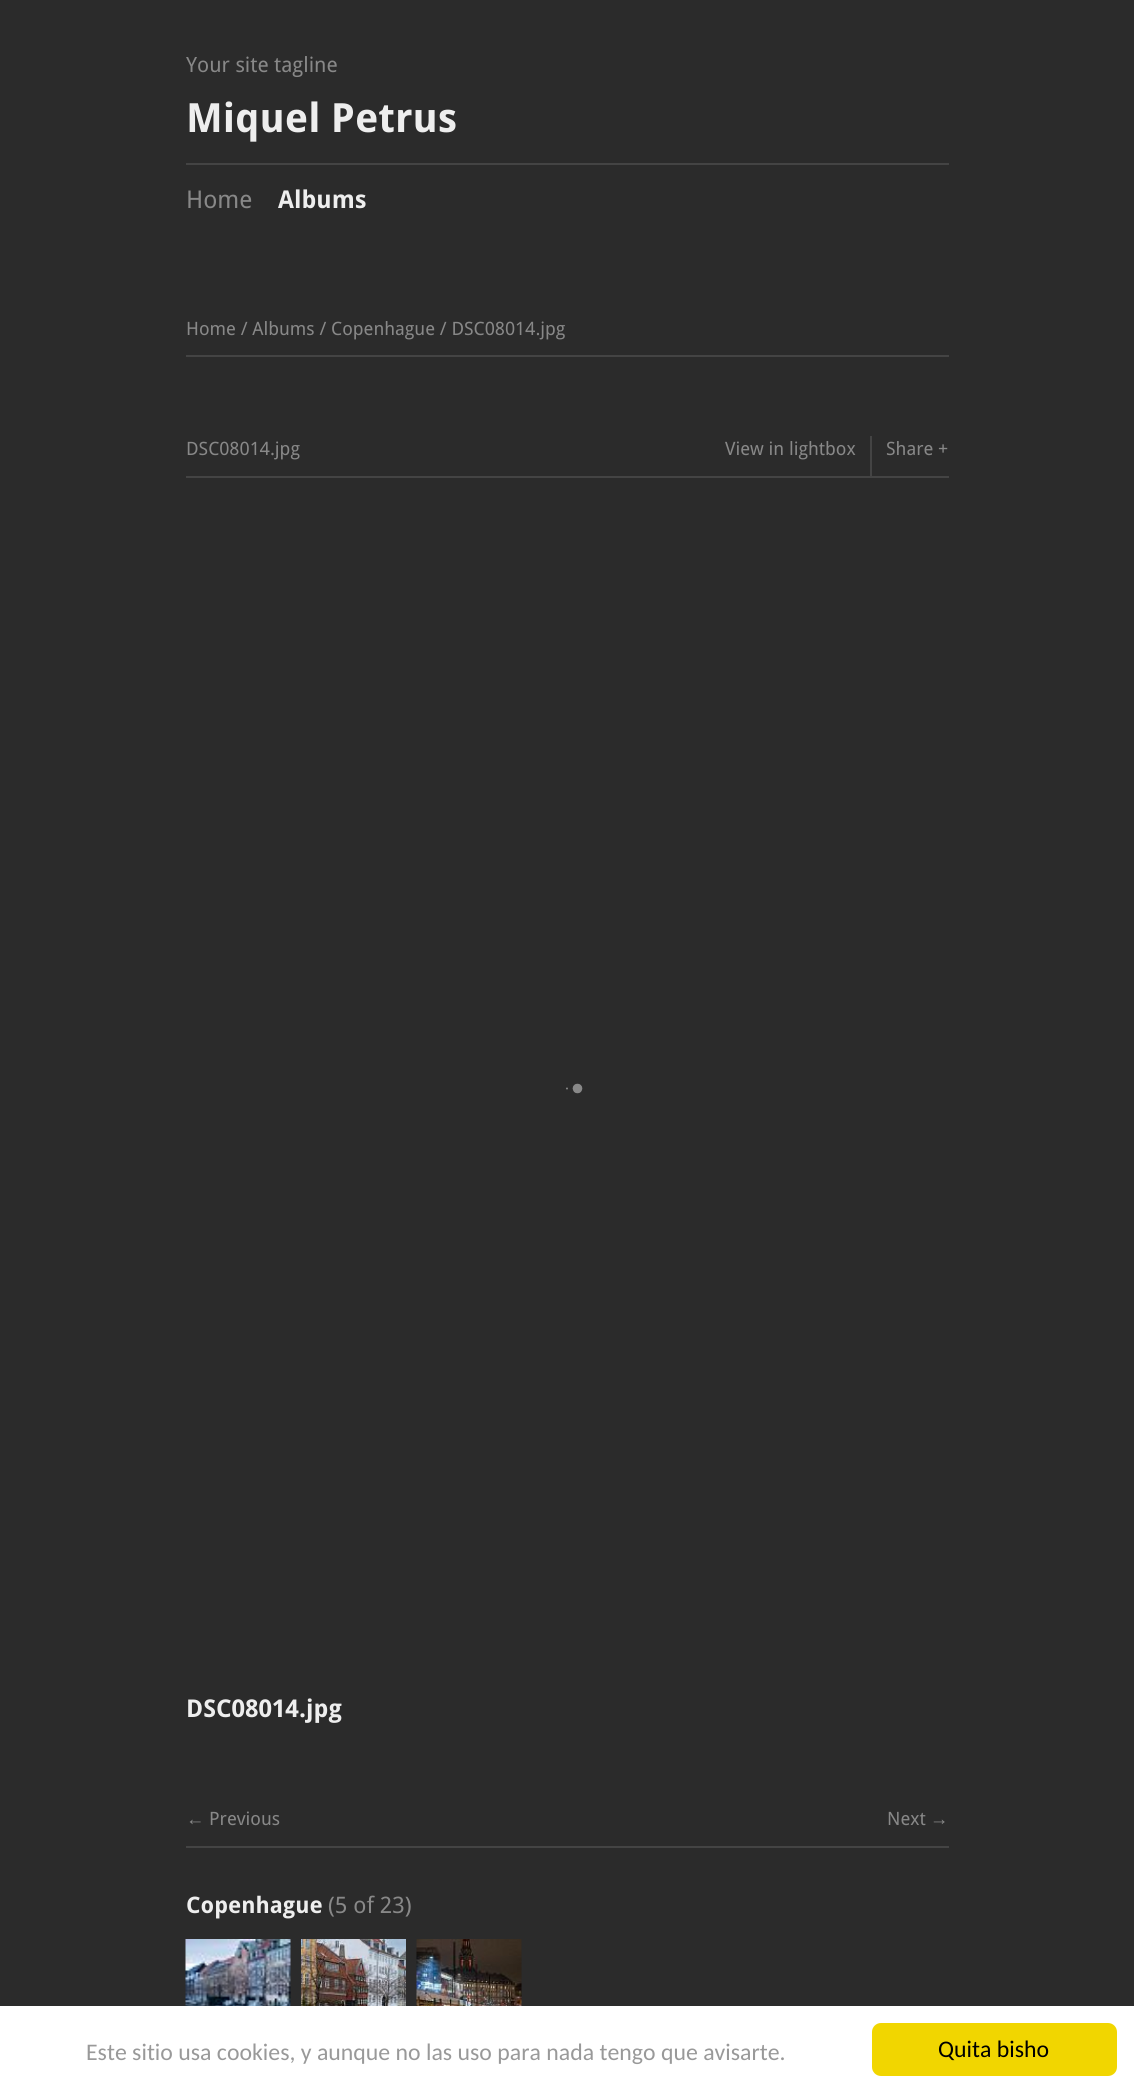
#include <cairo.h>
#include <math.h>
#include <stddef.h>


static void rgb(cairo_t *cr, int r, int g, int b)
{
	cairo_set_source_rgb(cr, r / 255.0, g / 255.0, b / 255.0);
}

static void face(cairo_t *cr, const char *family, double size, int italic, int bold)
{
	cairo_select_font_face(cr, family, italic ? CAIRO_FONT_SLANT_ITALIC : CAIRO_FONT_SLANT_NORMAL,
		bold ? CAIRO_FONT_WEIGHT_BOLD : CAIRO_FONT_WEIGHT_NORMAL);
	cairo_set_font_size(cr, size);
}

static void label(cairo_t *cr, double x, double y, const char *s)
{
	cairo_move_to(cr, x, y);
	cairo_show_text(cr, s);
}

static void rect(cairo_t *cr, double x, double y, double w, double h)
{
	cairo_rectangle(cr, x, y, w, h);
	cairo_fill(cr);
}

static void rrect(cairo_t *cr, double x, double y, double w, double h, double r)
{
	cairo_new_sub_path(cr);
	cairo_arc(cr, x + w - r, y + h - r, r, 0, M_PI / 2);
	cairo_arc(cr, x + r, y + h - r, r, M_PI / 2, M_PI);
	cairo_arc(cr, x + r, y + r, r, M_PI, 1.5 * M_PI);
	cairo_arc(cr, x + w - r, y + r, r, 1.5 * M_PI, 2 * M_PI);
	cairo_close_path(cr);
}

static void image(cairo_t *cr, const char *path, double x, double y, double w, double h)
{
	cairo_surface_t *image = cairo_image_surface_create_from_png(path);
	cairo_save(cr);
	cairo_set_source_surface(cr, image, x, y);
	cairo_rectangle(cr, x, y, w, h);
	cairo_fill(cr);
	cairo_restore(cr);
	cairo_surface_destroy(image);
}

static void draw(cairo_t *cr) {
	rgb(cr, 43, 43, 43);
	cairo_paint(cr);
	face(cr, "Droid Sans", 21, 0, 0);
	rgb(cr, 136, 136, 136);
	label(cr, 186, 72, "Your site tagline");
	face(cr, "Droid Sans", 40.25, 0, 1);
	rgb(cr, 238, 238, 238);
	label(cr, 186, 132, "Miquel Petrus");
	rgb(cr, 68, 68, 68);
	rect(cr, 186, 163, 763, 2);
	face(cr, "Droid Sans", 24.5, 0, 0);
	rgb(cr, 136, 136, 136);
	label(cr, 186, 208, "Home");
	face(cr, "Droid Sans", 24.5, 0, 1);
	rgb(cr, 238, 238, 238);
	label(cr, 278, 208, "Albums");
	rgb(cr, 68, 68, 68);
	rect(cr, 186, 355, 763, 2);
	face(cr, "Droid Sans", 18.4, 0, 0);
	rgb(cr, 136, 136, 136);
	label(cr, 186, 335, "Home / Albums / Copenhague / DSC08014.jpg");
	rgb(cr, 68, 68, 68);
	rect(cr, 186, 476, 763, 2);
	rgb(cr, 136, 136, 136);
	label(cr, 186, 455, "DSC08014.jpg");
	label(cr, 725, 455, "View in lightbox");
	rgb(cr, 68, 68, 68);
	rect(cr, 870, 436, 2, 40);
	rgb(cr, 136, 136, 136);
	label(cr, 886, 455, "Share +");
	image(cr, "image0.png", 566, 1083, 17, 11);
	face(cr, "Droid Sans", 24.5, 0, 1);
	rgb(cr, 238, 238, 238);
	label(cr, 186, 1717, "DSC08014.jpg");
	rgb(cr, 68, 68, 68);
	rect(cr, 186, 1846, 763, 2);
	face(cr, "Liberation Sans", 18.4, 0, 0);
	rgb(cr, 136, 136, 136);
	label(cr, 186, 1825, "←");
	face(cr, "Droid Sans", 18.4, 0, 0);
	label(cr, 209, 1825, "Previous");
	label(cr, 887, 1825, "Next");
	face(cr, "Liberation Sans", 18.4, 0, 0);
	label(cr, 930, 1825, "→");
	face(cr, "Droid Sans", 22.75, 0, 1);
	rgb(cr, 238, 238, 238);
	label(cr, 186, 1913, "Copenhague");
	face(cr, "Droid Sans", 22.75, 0, 0);
	rgb(cr, 136, 136, 136);
	label(cr, 328, 1913, "(5 of 23)");
	image(cr, "image1.png", 185, 1939, 106, 67);
	image(cr, "image2.png", 301, 1939, 105, 67);
	image(cr, "image3.png", 416, 1939, 106, 67);
	rgb(cr, 255, 255, 255);
	rect(cr, 0, 2006, 1134, 87);
	face(cr, "Carlito", 23.8, 0, 0);
	rgb(cr, 153, 153, 153);
	label(cr, 86, 2060, "Este sitio usa cookies, y aunque no las uso para nada tengo que avisarte.");
	rgb(cr, 241, 214, 0);
	rrect(cr, 872, 2023, 245, 53, 9);
	cairo_fill(cr);
	rgb(cr, 0, 0, 0);
	label(cr, 938, 2057, "Quita bisho");
}

int main(void) {
	cairo_surface_t *surface = cairo_image_surface_create(CAIRO_FORMAT_RGB24, 1134, 2093);
	cairo_t *cr = cairo_create(surface);
	cairo_font_options_t *options = cairo_font_options_create();
	cairo_font_options_set_hint_metrics(options, CAIRO_HINT_METRICS_OFF);
	cairo_font_options_set_hint_style(options, CAIRO_HINT_STYLE_NONE);
	cairo_set_font_options(cr, options);
	cairo_set_miter_limit(cr, 4);
	draw(cr);
	cairo_surface_write_to_png(surface, "render.png");
	cairo_font_options_destroy(options);
	cairo_destroy(cr);
	cairo_surface_destroy(surface);
	return 0;
}
